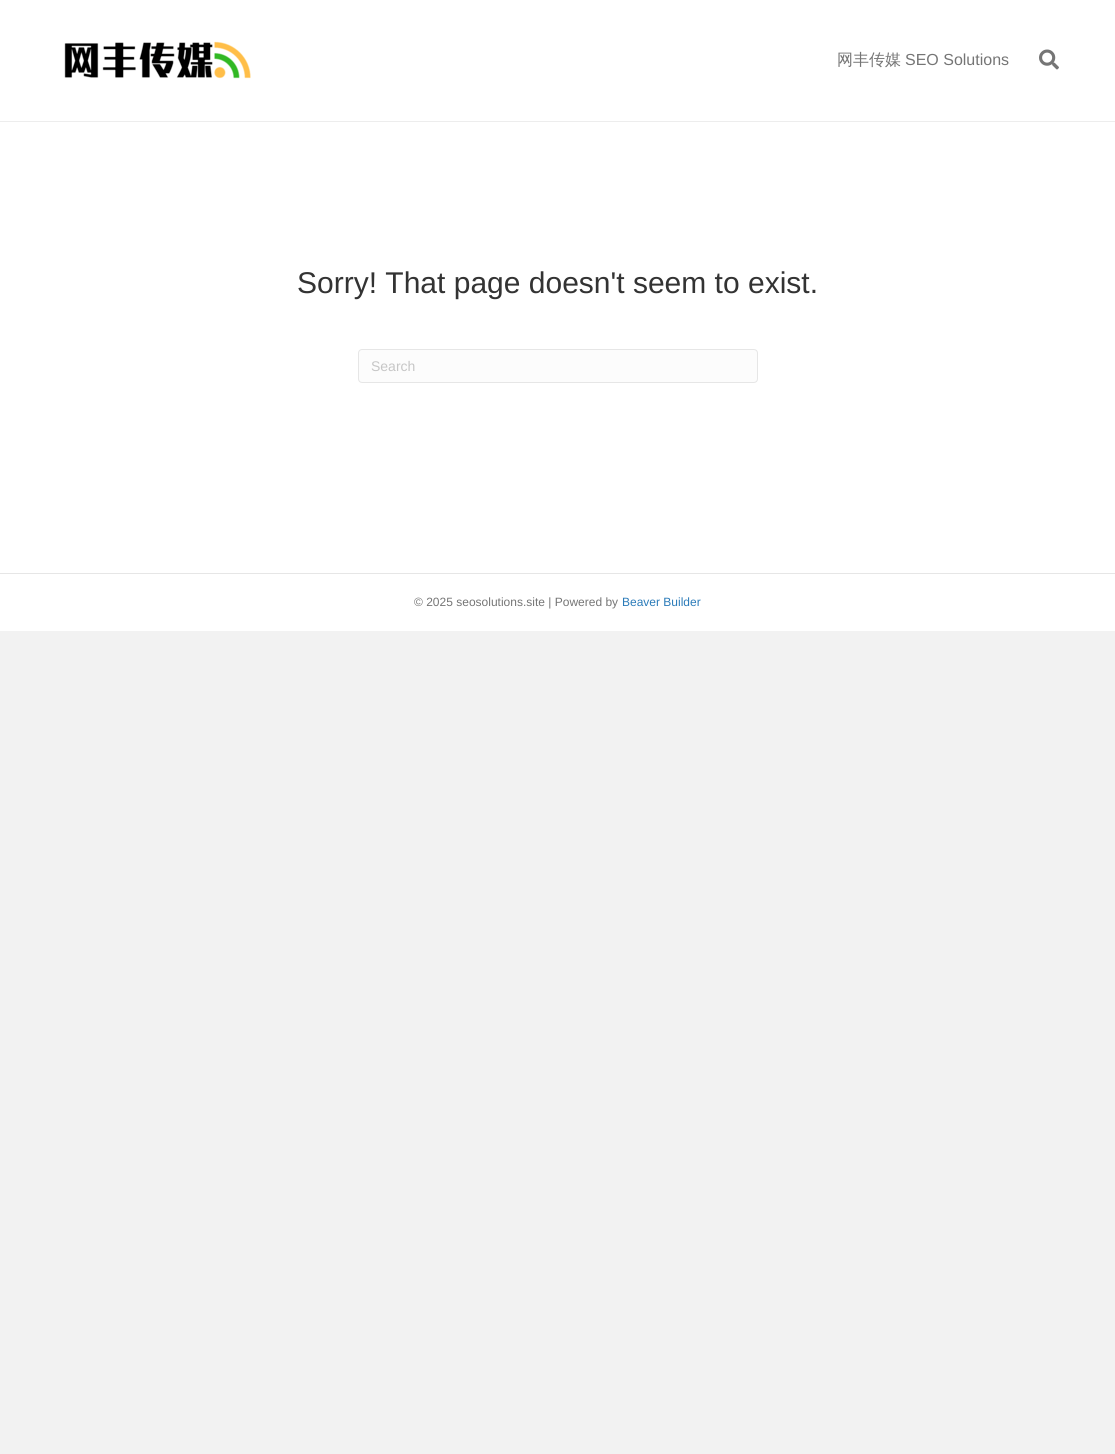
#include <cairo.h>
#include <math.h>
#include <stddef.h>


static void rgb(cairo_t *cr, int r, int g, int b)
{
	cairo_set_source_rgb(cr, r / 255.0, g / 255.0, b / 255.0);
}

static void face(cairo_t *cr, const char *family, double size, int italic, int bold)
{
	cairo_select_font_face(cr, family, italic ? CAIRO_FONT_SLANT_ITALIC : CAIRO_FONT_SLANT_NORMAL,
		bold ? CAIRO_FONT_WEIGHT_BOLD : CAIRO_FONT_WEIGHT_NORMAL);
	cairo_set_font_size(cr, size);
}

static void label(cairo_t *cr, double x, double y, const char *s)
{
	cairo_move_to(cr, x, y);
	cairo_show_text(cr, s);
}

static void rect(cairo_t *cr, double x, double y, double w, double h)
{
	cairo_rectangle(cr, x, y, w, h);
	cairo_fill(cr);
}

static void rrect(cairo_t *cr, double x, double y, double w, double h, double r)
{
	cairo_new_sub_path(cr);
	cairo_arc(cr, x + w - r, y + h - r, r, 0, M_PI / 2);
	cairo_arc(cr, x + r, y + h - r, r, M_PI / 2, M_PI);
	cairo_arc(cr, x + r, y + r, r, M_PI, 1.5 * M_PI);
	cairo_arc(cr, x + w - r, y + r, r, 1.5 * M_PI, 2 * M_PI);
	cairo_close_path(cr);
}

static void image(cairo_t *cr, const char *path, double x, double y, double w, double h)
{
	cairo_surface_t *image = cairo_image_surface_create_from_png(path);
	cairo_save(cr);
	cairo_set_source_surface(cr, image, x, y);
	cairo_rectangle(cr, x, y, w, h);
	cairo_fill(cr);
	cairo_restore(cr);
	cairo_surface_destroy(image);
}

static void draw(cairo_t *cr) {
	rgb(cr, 242, 242, 242);
	cairo_paint(cr);
	rgb(cr, 255, 255, 255);
	rect(cr, 0, 0, 1115, 121);
	rgb(cr, 237, 237, 237);
	rect(cr, 0, 121, 1115, 1);
	image(cr, "image0.png", 64, 41, 187, 38);
	face(cr, "WenQuanYi Zen Hei Medium", 16, 0, 0);
	rgb(cr, 117, 117, 117);
	label(cr, 837, 65, "网丰传媒");
	face(cr, "Liberation Sans", 16, 0, 0);
	label(cr, 905, 65, "SEO Solutions");
	image(cr, "image1.png", 1039, 49, 20, 21);
	rgb(cr, 255, 255, 255);
	rect(cr, 0, 122, 1115, 451);
	face(cr, "Liberation Sans", 30, 0, 0);
	rgb(cr, 51, 51, 51);
	label(cr, 297, 293, "Sorry! That page doesn't seem to exist.");
	rgb(cr, 252, 252, 252);
	rrect(cr, 358.5, 349.5, 399, 33, 3.5);
	cairo_fill_preserve(cr);
	rgb(cr, 230, 230, 230);
	cairo_set_line_width(cr, 1);
	cairo_stroke(cr);
	face(cr, "Liberation Sans", 14, 0, 0);
	rgb(cr, 198, 198, 198);
	label(cr, 371, 371, "Search");
	rgb(cr, 255, 255, 255);
	rect(cr, 0, 574, 1115, 57);
	rgb(cr, 230, 230, 230);
	rect(cr, 0, 573, 1115, 1);
	face(cr, "Liberation Sans", 12, 0, 0);
	rgb(cr, 117, 117, 117);
	label(cr, 414, 606, "© 2025 seosolutions.site | Powered by");
	rgb(cr, 43, 123, 185);
	label(cr, 622, 606, "Beaver Builder");
}

int main(void) {
	cairo_surface_t *surface = cairo_image_surface_create(CAIRO_FORMAT_RGB24, 1115, 1454);
	cairo_t *cr = cairo_create(surface);
	cairo_font_options_t *options = cairo_font_options_create();
	cairo_font_options_set_hint_metrics(options, CAIRO_HINT_METRICS_OFF);
	cairo_font_options_set_hint_style(options, CAIRO_HINT_STYLE_NONE);
	cairo_set_font_options(cr, options);
	cairo_set_miter_limit(cr, 4);
	draw(cr);
	cairo_surface_write_to_png(surface, "render.png");
	cairo_font_options_destroy(options);
	cairo_destroy(cr);
	cairo_surface_destroy(surface);
	return 0;
}
